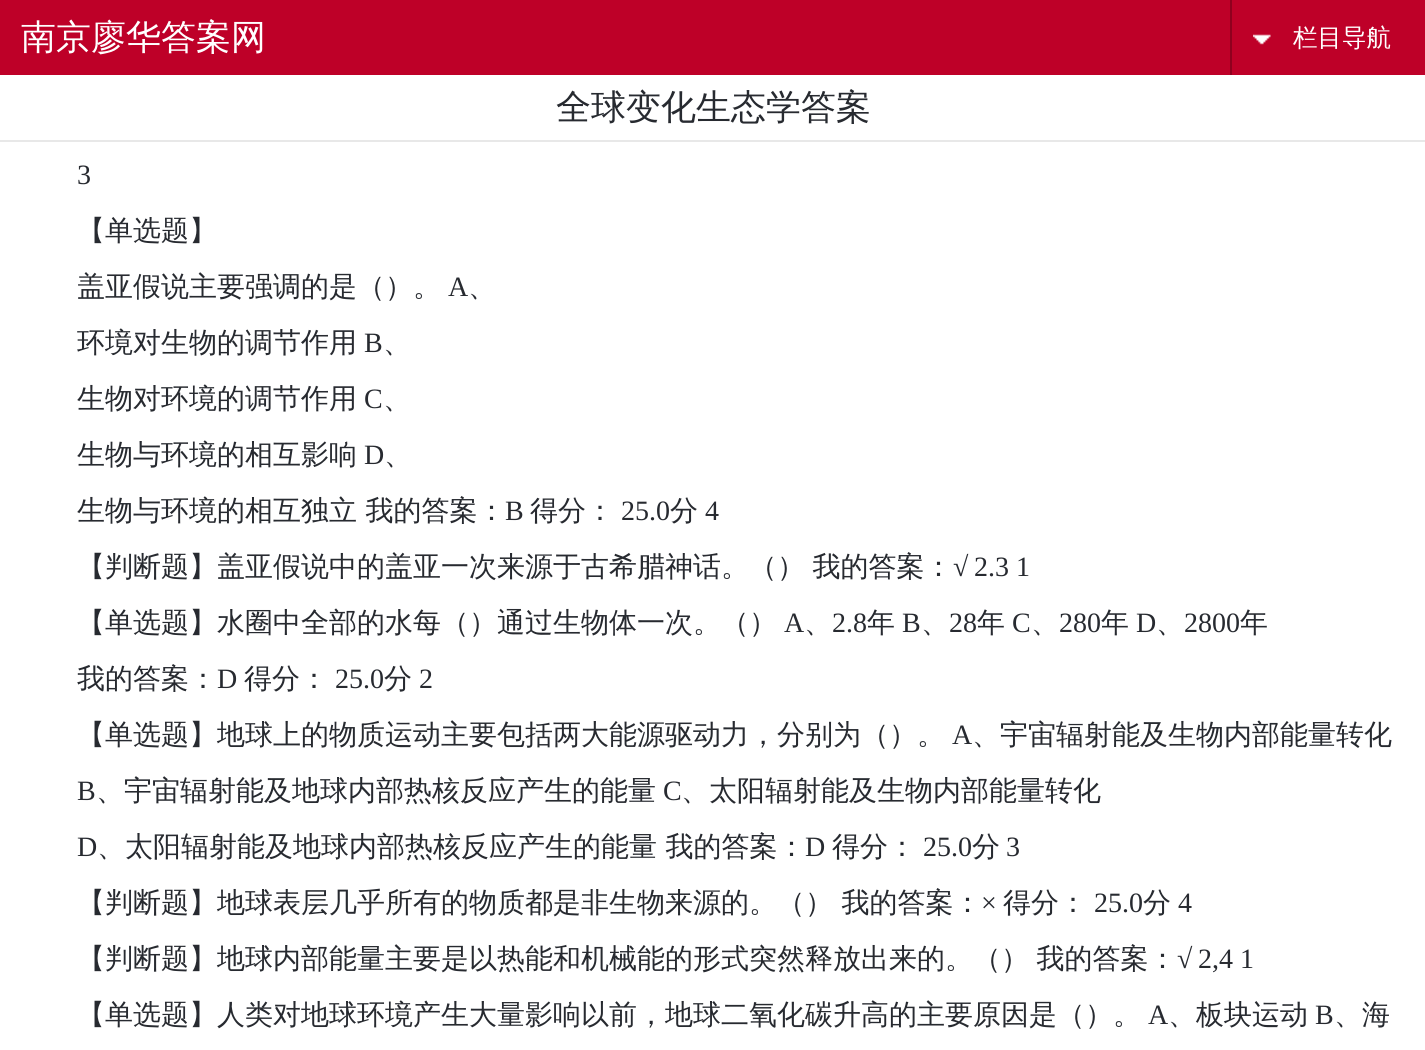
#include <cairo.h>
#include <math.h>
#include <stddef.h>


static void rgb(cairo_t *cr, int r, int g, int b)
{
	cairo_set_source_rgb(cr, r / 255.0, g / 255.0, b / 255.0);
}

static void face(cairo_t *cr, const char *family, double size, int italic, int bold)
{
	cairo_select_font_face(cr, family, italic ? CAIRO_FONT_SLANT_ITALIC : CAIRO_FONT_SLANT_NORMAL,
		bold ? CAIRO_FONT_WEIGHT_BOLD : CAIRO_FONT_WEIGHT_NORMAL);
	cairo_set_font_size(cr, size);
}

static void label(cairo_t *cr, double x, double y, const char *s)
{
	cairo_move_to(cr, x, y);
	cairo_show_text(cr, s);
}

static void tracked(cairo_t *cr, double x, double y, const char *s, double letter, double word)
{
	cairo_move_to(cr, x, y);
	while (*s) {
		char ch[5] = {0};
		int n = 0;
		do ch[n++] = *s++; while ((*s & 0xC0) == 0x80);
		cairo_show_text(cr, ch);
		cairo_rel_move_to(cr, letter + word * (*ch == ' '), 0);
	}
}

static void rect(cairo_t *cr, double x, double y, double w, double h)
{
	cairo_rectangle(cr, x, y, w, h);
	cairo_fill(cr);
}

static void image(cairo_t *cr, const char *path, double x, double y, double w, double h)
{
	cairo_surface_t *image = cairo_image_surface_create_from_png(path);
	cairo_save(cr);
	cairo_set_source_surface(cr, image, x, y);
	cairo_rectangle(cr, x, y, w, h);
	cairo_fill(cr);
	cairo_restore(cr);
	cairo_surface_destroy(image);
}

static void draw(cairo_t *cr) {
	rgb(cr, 255, 255, 255);
	cairo_paint(cr);
	rgb(cr, 190, 0, 40);
	rect(cr, 0, 0, 1425, 75);
	face(cr, "WenQuanYi Zen Hei Medium", 35, 0, 0);
	rgb(cr, 255, 255, 255);
	label(cr, 21, 49, "南京廖华答案网");
	image(cr, "image0.png", 1253, 34, 18, 11);
	rgb(cr, 143, 0, 30);
	rect(cr, 1230, 0, 2, 75);
	face(cr, "WenQuanYi Zen Hei Medium", 24.5, 0, 0);
	rgb(cr, 255, 255, 255);
	label(cr, 1293, 46, "栏目导航");
	face(cr, "WenQuanYi Zen Hei Medium", 35, 0, 0);
	rgb(cr, 39, 42, 48);
	label(cr, 556, 119, "全球变化生态学答案");
	rgb(cr, 232, 232, 232);
	rect(cr, 0, 140, 1425, 2);
	face(cr, "Liberation Serif", 28, 0, 0);
	rgb(cr, 39, 42, 48);
	label(cr, 77, 184, "3");
	face(cr, "WenQuanYi Zen Hei Medium", 28, 0, 0);
	label(cr, 77, 240, "【单选题】");
	label(cr, 77, 296, "盖亚假说主要强调的是（）。");
	face(cr, "Liberation Serif", 28, 0, 0);
	label(cr, 448, 296, "A");
	face(cr, "WenQuanYi Zen Hei Medium", 28, 0, 0);
	label(cr, 468, 296, "、");
	label(cr, 77, 352, "环境对生物的调节作用");
	face(cr, "Liberation Serif", 28, 0, 0);
	label(cr, 364, 352, "B");
	face(cr, "WenQuanYi Zen Hei Medium", 28, 0, 0);
	label(cr, 383, 352, "、");
	label(cr, 77, 408, "生物对环境的调节作用");
	face(cr, "Liberation Serif", 28, 0, 0);
	label(cr, 364, 408, "C");
	face(cr, "WenQuanYi Zen Hei Medium", 28, 0, 0);
	label(cr, 383, 408, "、");
	label(cr, 77, 464, "生物与环境的相互影响");
	face(cr, "Liberation Serif", 28, 0, 0);
	label(cr, 364, 464, "D");
	face(cr, "WenQuanYi Zen Hei Medium", 28, 0, 0);
	label(cr, 384, 464, "、");
	label(cr, 77, 520, "生物与环境的相互独立 我的答案：");
	face(cr, "Liberation Serif", 28, 0, 0);
	label(cr, 505, 520, "B");
	face(cr, "WenQuanYi Zen Hei Medium", 28, 0, 0);
	label(cr, 530, 520, "得分：");
	face(cr, "Liberation Serif", 28, 0, 0);
	label(cr, 621, 520, "25.0");
	face(cr, "WenQuanYi Zen Hei Medium", 28, 0, 0);
	label(cr, 670, 520, "分");
	face(cr, "Liberation Serif", 28, 0, 0);
	label(cr, 705, 520, "4");
	face(cr, "WenQuanYi Zen Hei Medium", 28, 0, 0);
	tracked(cr, 77, 576, "【判断题】盖亚假说中的盖亚一次来源于古希腊神话。（） 我的答案：", 0, -1);
	face(cr, "Liberation Serif", 28, 0, 0);
	label(cr, 953, 576, "√");
	label(cr, 974, 576, "2.3 1");
	face(cr, "WenQuanYi Zen Hei Medium", 28, 0, 0);
	label(cr, 77, 632, "【单选题】水圈中全部的水每（）通过生物体一次。（）");
	face(cr, "Liberation Serif", 28, 0, 0);
	label(cr, 784, 632, "A");
	face(cr, "WenQuanYi Zen Hei Medium", 28, 0, 0);
	label(cr, 804, 632, "、");
	face(cr, "Liberation Serif", 28, 0, 0);
	label(cr, 832, 632, "2.8");
	face(cr, "WenQuanYi Zen Hei Medium", 28, 0, 0);
	label(cr, 867, 632, "年");
	face(cr, "Liberation Serif", 28, 0, 0);
	label(cr, 902, 632, "B");
	face(cr, "WenQuanYi Zen Hei Medium", 28, 0, 0);
	label(cr, 921, 632, "、");
	face(cr, "Liberation Serif", 28, 0, 0);
	label(cr, 949, 632, "28");
	face(cr, "WenQuanYi Zen Hei Medium", 28, 0, 0);
	label(cr, 977, 632, "年");
	face(cr, "Liberation Serif", 28, 0, 0);
	label(cr, 1012, 632, "C");
	face(cr, "WenQuanYi Zen Hei Medium", 28, 0, 0);
	label(cr, 1031, 632, "、");
	face(cr, "Liberation Serif", 28, 0, 0);
	label(cr, 1059, 632, "280");
	face(cr, "WenQuanYi Zen Hei Medium", 28, 0, 0);
	label(cr, 1101, 632, "年");
	face(cr, "Liberation Serif", 28, 0, 0);
	label(cr, 1136, 632, "D");
	face(cr, "WenQuanYi Zen Hei Medium", 28, 0, 0);
	label(cr, 1156, 632, "、");
	face(cr, "Liberation Serif", 28, 0, 0);
	label(cr, 1184, 632, "2800");
	face(cr, "WenQuanYi Zen Hei Medium", 28, 0, 0);
	label(cr, 1240, 632, "年");
	label(cr, 77, 688, "我的答案：");
	face(cr, "Liberation Serif", 28, 0, 0);
	label(cr, 217, 688, "D");
	face(cr, "WenQuanYi Zen Hei Medium", 28, 0, 0);
	label(cr, 244, 688, "得分：");
	face(cr, "Liberation Serif", 28, 0, 0);
	label(cr, 335, 688, "25.0");
	face(cr, "WenQuanYi Zen Hei Medium", 28, 0, 0);
	label(cr, 384, 688, "分");
	face(cr, "Liberation Serif", 28, 0, 0);
	label(cr, 419, 688, "2");
	face(cr, "WenQuanYi Zen Hei Medium", 28, 0, 0);
	label(cr, 77, 744, "【单选题】地球上的物质运动主要包括两大能源驱动力，分别为（）。");
	face(cr, "Liberation Serif", 28, 0, 0);
	label(cr, 952, 744, "A");
	face(cr, "WenQuanYi Zen Hei Medium", 28, 0, 0);
	label(cr, 972, 744, "、宇宙辐射能及生物内部能量转化");
	face(cr, "Liberation Serif", 28, 0, 0);
	label(cr, 77, 800, "B");
	face(cr, "WenQuanYi Zen Hei Medium", 28, 0, 0);
	label(cr, 96, 800, "、宇宙辐射能及地球内部热核反应产生的能量");
	face(cr, "Liberation Serif", 28, 0, 0);
	label(cr, 663, 800, "C");
	face(cr, "WenQuanYi Zen Hei Medium", 28, 0, 0);
	label(cr, 681, 800, "、太阳辐射能及生物内部能量转化");
	face(cr, "Liberation Serif", 28, 0, 0);
	label(cr, 77, 856, "D");
	face(cr, "WenQuanYi Zen Hei Medium", 28, 0, 0);
	label(cr, 97, 856, "、太阳辐射能及地球内部热核反应产生的能量 我的答案：");
	face(cr, "Liberation Serif", 28, 0, 0);
	label(cr, 805, 856, "D");
	face(cr, "WenQuanYi Zen Hei Medium", 28, 0, 0);
	label(cr, 832, 856, "得分：");
	face(cr, "Liberation Serif", 28, 0, 0);
	label(cr, 923, 856, "25.0");
	face(cr, "WenQuanYi Zen Hei Medium", 28, 0, 0);
	label(cr, 972, 856, "分");
	face(cr, "Liberation Serif", 28, 0, 0);
	label(cr, 1006, 856, "3");
	face(cr, "WenQuanYi Zen Hei Medium", 28, 0, 0);
	label(cr, 77, 912, "【判断题】地球表层几乎所有的物质都是非生物来源的。（） 我的答案：");
	face(cr, "Liberation Serif", 28, 0, 0);
	label(cr, 981, 912, "×");
	face(cr, "WenQuanYi Zen Hei Medium", 28, 0, 0);
	label(cr, 1003, 912, "得分：");
	face(cr, "Liberation Serif", 28, 0, 0);
	label(cr, 1094, 912, "25.0");
	face(cr, "WenQuanYi Zen Hei Medium", 28, 0, 0);
	label(cr, 1143, 912, "分");
	face(cr, "Liberation Serif", 28, 0, 0);
	label(cr, 1178, 912, "4");
	face(cr, "WenQuanYi Zen Hei Medium", 28, 0, 0);
	tracked(cr, 77, 968, "【判断题】地球内部能量主要是以热能和机械能的形式突然释放出来的。（） 我的答案：", 0, -1);
	face(cr, "Liberation Serif", 28, 0, 0);
	label(cr, 1177, 968, "√");
	label(cr, 1198, 968, "2,4 1");
	face(cr, "WenQuanYi Zen Hei Medium", 28, 0, 0);
	label(cr, 77, 1024, "【单选题】人类对地球环境产生大量影响以前，地球二氧化碳升高的主要原因是（）。");
	face(cr, "Liberation Serif", 28, 0, 0);
	label(cr, 1148, 1024, "A");
	face(cr, "WenQuanYi Zen Hei Medium", 28, 0, 0);
	label(cr, 1168, 1024, "、板块运动");
	face(cr, "Liberation Serif", 28, 0, 0);
	label(cr, 1315, 1024, "B");
	face(cr, "WenQuanYi Zen Hei Medium", 28, 0, 0);
	label(cr, 1334, 1024, "、海");
}

int main(void) {
	cairo_surface_t *surface = cairo_image_surface_create(CAIRO_FORMAT_RGB24, 1425, 1050);
	cairo_t *cr = cairo_create(surface);
	cairo_font_options_t *options = cairo_font_options_create();
	cairo_font_options_set_hint_metrics(options, CAIRO_HINT_METRICS_OFF);
	cairo_font_options_set_hint_style(options, CAIRO_HINT_STYLE_NONE);
	cairo_set_font_options(cr, options);
	cairo_set_miter_limit(cr, 4);
	draw(cr);
	cairo_surface_write_to_png(surface, "render.png");
	cairo_font_options_destroy(options);
	cairo_destroy(cr);
	cairo_surface_destroy(surface);
	return 0;
}
